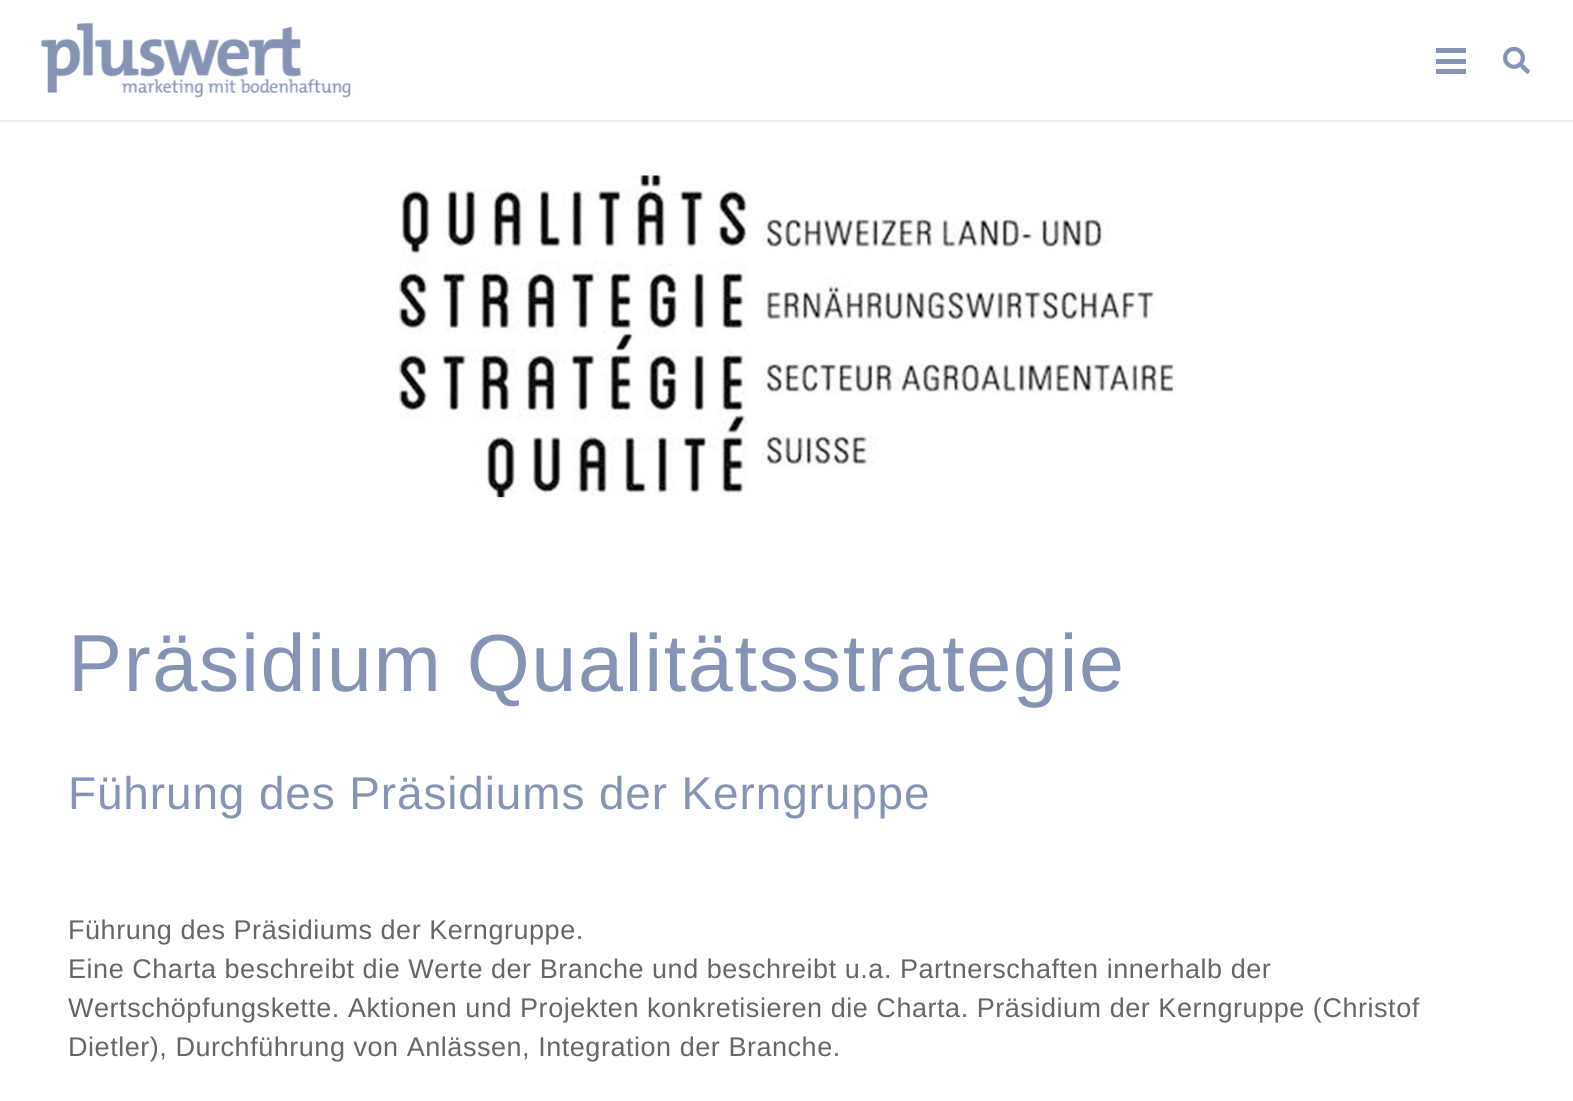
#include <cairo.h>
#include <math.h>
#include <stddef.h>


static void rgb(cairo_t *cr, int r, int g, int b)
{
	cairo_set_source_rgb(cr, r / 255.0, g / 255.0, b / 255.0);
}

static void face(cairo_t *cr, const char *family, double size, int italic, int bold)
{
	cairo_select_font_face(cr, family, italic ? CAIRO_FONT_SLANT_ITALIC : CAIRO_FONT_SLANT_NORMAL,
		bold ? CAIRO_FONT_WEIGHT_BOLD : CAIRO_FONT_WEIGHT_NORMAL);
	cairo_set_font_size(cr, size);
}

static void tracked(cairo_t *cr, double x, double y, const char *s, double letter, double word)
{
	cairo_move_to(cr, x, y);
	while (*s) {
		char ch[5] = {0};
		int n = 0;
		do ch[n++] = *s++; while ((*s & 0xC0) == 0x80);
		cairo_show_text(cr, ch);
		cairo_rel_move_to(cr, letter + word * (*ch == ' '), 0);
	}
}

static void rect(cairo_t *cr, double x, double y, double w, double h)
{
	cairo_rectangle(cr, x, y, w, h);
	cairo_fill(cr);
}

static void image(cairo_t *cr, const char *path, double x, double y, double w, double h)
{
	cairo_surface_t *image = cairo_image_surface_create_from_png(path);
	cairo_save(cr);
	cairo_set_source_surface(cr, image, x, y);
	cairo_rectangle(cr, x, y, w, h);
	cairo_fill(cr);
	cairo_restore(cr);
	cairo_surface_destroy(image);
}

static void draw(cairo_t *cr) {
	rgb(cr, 255, 255, 255);
	cairo_paint(cr);
	rgb(cr, 235, 235, 235);
	cairo_new_path(cr);
	cairo_move_to(cr, 0, 120);
	cairo_line_to(cr, 0, 122);
	cairo_line_to(cr, 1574, 122);
	cairo_line_to(cr, 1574, 2);
	cairo_line_to(cr, 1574, 120);
	cairo_close_path(cr);
	cairo_fill(cr);
	image(cr, "image0.png", 41, 23, 310, 75);
	rgb(cr, 133, 147, 181);
	rect(cr, 1436, 59, 30, 5);
	rect(cr, 1436, 48, 30, 5);
	rect(cr, 1436, 69, 30, 5);
	image(cr, "image1.png", 1503, 46, 27, 28);
	image(cr, "image2.png", 397, 174, 779, 324);
	face(cr, "Arimo", 81, 0, 0);
	tracked(cr, 68, 691, "Präsidium Qualitätsstrategie", 1.6, 0);
	face(cr, "Arimo", 45.9, 0, 0);
	tracked(cr, 68, 809, "Führung des Präsidiums der Kerngruppe", 0.9, 0);
	face(cr, "Arimo", 27, 0, 0);
	rgb(cr, 102, 102, 102);
	tracked(cr, 68, 939, "Führung des Präsidiums der Kerngruppe.", 0.54, 0);
	tracked(cr, 68, 978, "Eine Charta beschreibt die Werte der Branche und beschreibt u.a. Partnerschaften innerhalb der", 0.54, 0);
	tracked(cr, 68, 1017, "Wertschöpfungskette. Aktionen und Projekten konkretisieren die Charta. Präsidium der Kerngruppe (Christof", 0.54, 0);
	tracked(cr, 68, 1056, "Dietler), Durchführung von Anlässen, Integration der Branche.", 0.54, 0);
}

int main(void) {
	cairo_surface_t *surface = cairo_image_surface_create(CAIRO_FORMAT_RGB24, 1573, 1101);
	cairo_t *cr = cairo_create(surface);
	cairo_font_options_t *options = cairo_font_options_create();
	cairo_font_options_set_hint_metrics(options, CAIRO_HINT_METRICS_OFF);
	cairo_font_options_set_hint_style(options, CAIRO_HINT_STYLE_NONE);
	cairo_set_font_options(cr, options);
	cairo_set_miter_limit(cr, 4);
	draw(cr);
	cairo_surface_write_to_png(surface, "render.png");
	cairo_font_options_destroy(options);
	cairo_destroy(cr);
	cairo_surface_destroy(surface);
	return 0;
}
